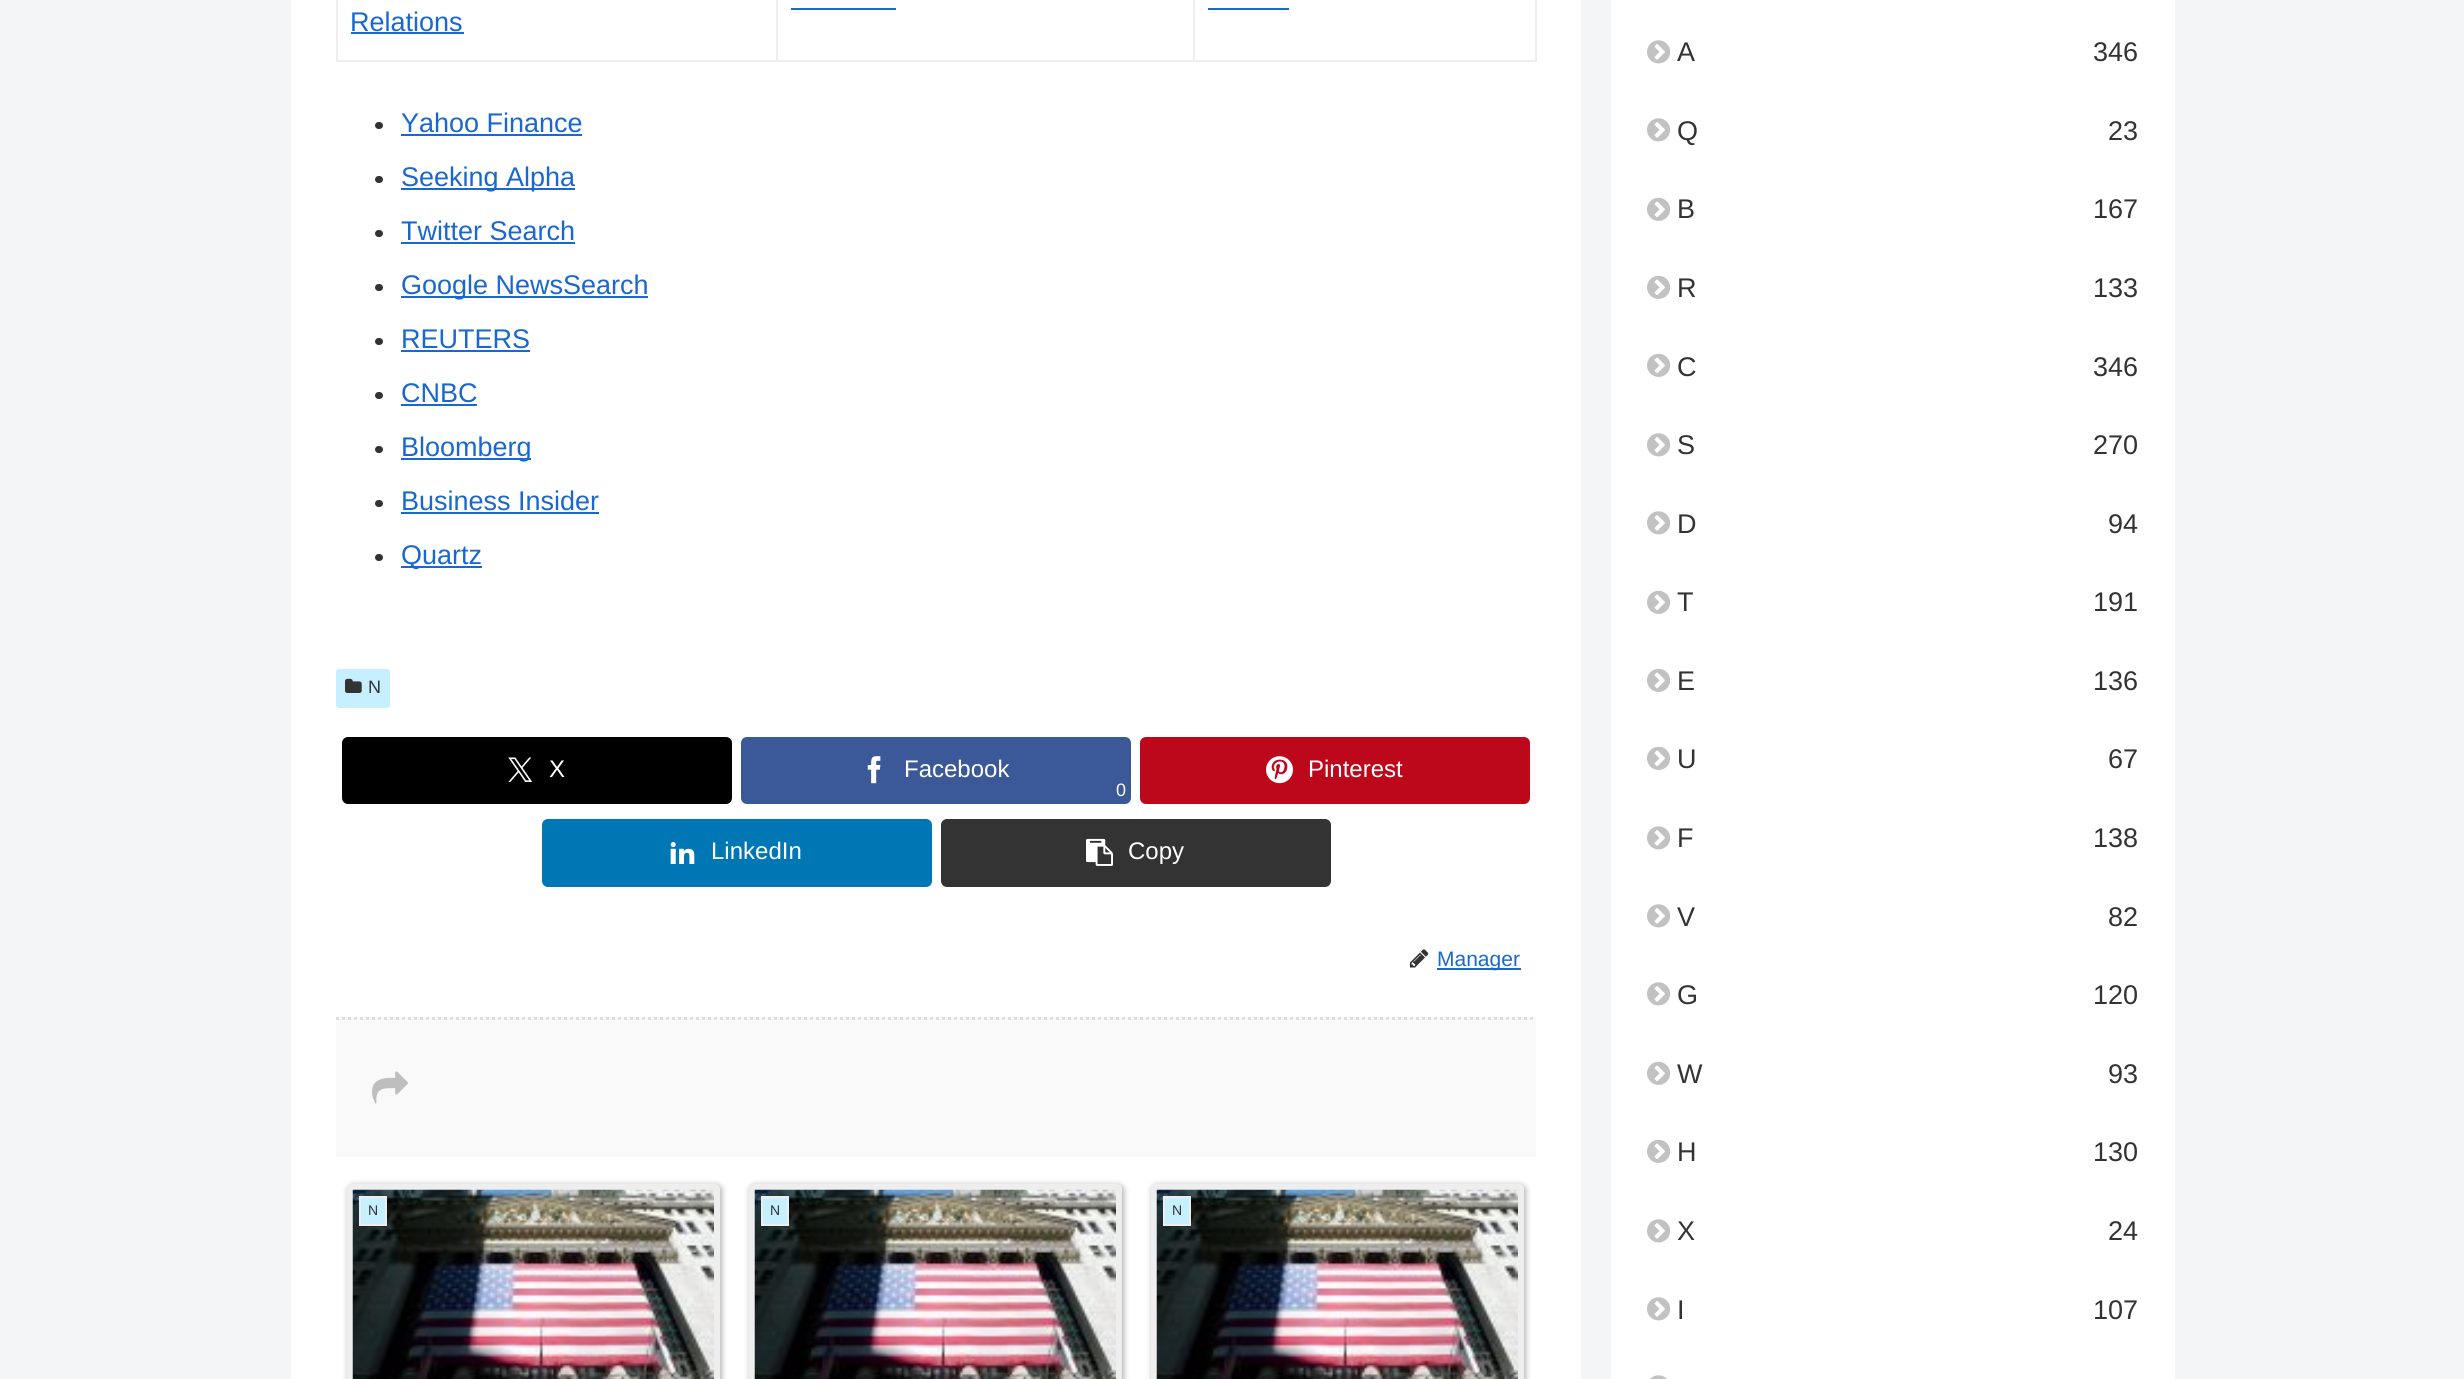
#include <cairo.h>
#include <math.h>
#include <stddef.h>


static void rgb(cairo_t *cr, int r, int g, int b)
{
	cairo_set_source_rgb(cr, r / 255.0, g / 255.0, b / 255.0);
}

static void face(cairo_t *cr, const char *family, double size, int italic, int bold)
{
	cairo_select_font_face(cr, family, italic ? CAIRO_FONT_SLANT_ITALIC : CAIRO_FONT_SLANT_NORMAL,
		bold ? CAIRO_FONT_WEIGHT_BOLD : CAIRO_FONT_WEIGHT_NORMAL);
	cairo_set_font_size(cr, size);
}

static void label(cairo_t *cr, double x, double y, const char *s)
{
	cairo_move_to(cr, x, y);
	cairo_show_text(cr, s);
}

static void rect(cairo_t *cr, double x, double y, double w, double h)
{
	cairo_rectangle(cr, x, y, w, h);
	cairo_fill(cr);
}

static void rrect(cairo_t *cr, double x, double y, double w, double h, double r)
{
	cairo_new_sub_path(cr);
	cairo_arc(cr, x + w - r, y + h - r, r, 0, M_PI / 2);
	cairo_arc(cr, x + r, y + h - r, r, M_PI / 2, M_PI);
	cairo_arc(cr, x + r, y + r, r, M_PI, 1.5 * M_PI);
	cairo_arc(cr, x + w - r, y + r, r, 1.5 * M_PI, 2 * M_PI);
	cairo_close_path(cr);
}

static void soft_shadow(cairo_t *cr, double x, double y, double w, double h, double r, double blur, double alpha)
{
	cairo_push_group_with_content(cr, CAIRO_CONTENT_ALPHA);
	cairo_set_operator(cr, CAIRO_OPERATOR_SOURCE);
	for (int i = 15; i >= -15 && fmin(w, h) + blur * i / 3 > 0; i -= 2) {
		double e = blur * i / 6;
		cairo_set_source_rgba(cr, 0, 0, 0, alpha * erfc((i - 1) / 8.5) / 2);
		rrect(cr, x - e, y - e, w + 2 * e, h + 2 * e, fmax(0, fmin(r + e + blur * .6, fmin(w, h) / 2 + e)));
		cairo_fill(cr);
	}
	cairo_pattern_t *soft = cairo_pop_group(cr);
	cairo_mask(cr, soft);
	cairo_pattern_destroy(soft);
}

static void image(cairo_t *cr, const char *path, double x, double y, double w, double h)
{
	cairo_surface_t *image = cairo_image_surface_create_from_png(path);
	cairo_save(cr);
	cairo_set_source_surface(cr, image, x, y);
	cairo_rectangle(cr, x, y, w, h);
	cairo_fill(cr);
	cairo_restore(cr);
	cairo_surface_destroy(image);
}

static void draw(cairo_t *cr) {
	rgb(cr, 244, 245, 247);
	cairo_paint(cr);
	rgb(cr, 255, 255, 255);
	rect(cr, 291, 0, 1290, 1379);
	rgb(cr, 238, 238, 238);
	rect(cr, 1535, 0, 2, 62);
	rect(cr, 1193, 60, 343, 2);
	rect(cr, 1193, 0, 2, 62);
	rect(cr, 776, 60, 418, 2);
	rect(cr, 776, 0, 2, 62);
	rect(cr, 336, 60, 441, 2);
	rect(cr, 336, 0, 2, 62);
	face(cr, "Liberation Sans", 27, 0, 0);
	rgb(cr, 25, 103, 210);
	label(cr, 350, 31, "Relations");
	rect(cr, 351, 32, 113, 2);
	rect(cr, 791, 8, 105, 2);
	rect(cr, 1208, 8, 81, 2);
	rgb(cr, 51, 51, 51);
	rrect(cr, 375, 122, 8, 7, 3.5);
	cairo_fill(cr);
	rgb(cr, 25, 103, 210);
	label(cr, 401, 132, "Yahoo Finance");
	rect(cr, 401, 134, 181, 2);
	rgb(cr, 51, 51, 51);
	rrect(cr, 375, 176, 8, 7, 3.5);
	cairo_fill(cr);
	rgb(cr, 25, 103, 210);
	rect(cr, 401, 188, 174, 2);
	label(cr, 401, 186, "Seeking Alpha");
	rgb(cr, 51, 51, 51);
	rrect(cr, 375, 230, 8, 7, 3.5);
	cairo_fill(cr);
	rgb(cr, 25, 103, 210);
	label(cr, 401, 240, "Twitter Search");
	rect(cr, 401, 242, 174, 2);
	rgb(cr, 51, 51, 51);
	rrect(cr, 375, 284, 8, 7, 3.5);
	cairo_fill(cr);
	rgb(cr, 25, 103, 210);
	rect(cr, 401, 296, 247, 2);
	label(cr, 401, 294, "Google NewsSearch");
	rgb(cr, 51, 51, 51);
	rrect(cr, 375, 338, 8, 7, 3.5);
	cairo_fill(cr);
	rgb(cr, 25, 103, 210);
	label(cr, 401, 348, "REUTERS");
	rect(cr, 401, 350, 129, 2);
	rgb(cr, 51, 51, 51);
	rrect(cr, 375, 392, 8, 7, 3.5);
	cairo_fill(cr);
	rgb(cr, 25, 103, 210);
	label(cr, 401, 402, "CNBC");
	rect(cr, 401, 404, 76, 2);
	rgb(cr, 51, 51, 51);
	rrect(cr, 375, 446, 8, 7, 3.5);
	cairo_fill(cr);
	rgb(cr, 25, 103, 210);
	rect(cr, 401, 458, 130, 2);
	label(cr, 401, 456, "Bloomberg");
	rgb(cr, 51, 51, 51);
	rrect(cr, 375, 500, 8, 7, 3.5);
	cairo_fill(cr);
	rgb(cr, 25, 103, 210);
	label(cr, 401, 510, "Business Insider");
	rect(cr, 401, 512, 198, 2);
	rgb(cr, 51, 51, 51);
	rrect(cr, 375, 554, 8, 7, 3.5);
	cairo_fill(cr);
	rgb(cr, 25, 103, 210);
	rect(cr, 401, 566, 81, 2);
	label(cr, 401, 564, "Quartz");
	rgb(cr, 198, 239, 255);
	rrect(cr, 336, 669, 54, 39, 3);
	cairo_fill(cr);
	image(cr, "image0.png", 345, 678, 17, 15);
	face(cr, "Liberation Sans", 18, 0, 0);
	rgb(cr, 51, 51, 51);
	label(cr, 368, 693, "N");
	rgb(cr, 0, 0, 0);
	rrect(cr, 342, 737, 390, 67, 6);
	cairo_fill(cr);
	image(cr, "image1.png", 508, 757, 25, 25);
	face(cr, "Liberation Sans", 24, 0, 0);
	rgb(cr, 255, 255, 255);
	label(cr, 549, 777, "X");
	rgb(cr, 59, 89, 152);
	rrect(cr, 741, 737, 390, 67, 6);
	cairo_fill(cr);
	image(cr, "image2.png", 867, 756, 14, 28);
	rgb(cr, 255, 255, 255);
	label(cr, 904, 777, "Facebook");
	face(cr, "Liberation Sans", 18, 0, 0);
	label(cr, 1116, 796, "0");
	rgb(cr, 189, 8, 28);
	rrect(cr, 1140, 737, 390, 67, 6);
	cairo_fill(cr);
	image(cr, "image3.png", 1266, 756, 27, 28);
	face(cr, "Liberation Sans", 24, 0, 0);
	rgb(cr, 255, 255, 255);
	label(cr, 1308, 777, "Pinterest");
	rgb(cr, 0, 119, 181);
	rrect(cr, 542, 819, 390, 68, 6);
	cairo_fill(cr);
	image(cr, "image4.png", 670, 842, 25, 22);
	rgb(cr, 255, 255, 255);
	label(cr, 711, 859, "LinkedIn");
	rgb(cr, 51, 51, 51);
	rrect(cr, 941, 819, 390, 68, 6);
	cairo_fill(cr);
	image(cr, "image5.png", 1086, 838, 27, 28);
	rgb(cr, 255, 255, 255);
	label(cr, 1128, 859, "Copy");
	image(cr, "image6.png", 1410, 949, 19, 19);
	rgb(cr, 25, 103, 210);
	rect(cr, 1437, 968, 84, 2);
	face(cr, "Liberation Sans", 21, 0, 0);
	label(cr, 1437, 966, "Manager");
	rgb(cr, 249, 249, 249);
	rect(cr, 336, 1017, 1200, 140);
	cairo_new_path(cr);
	cairo_move_to(cr, 336, 1018.5);
	cairo_line_to(cr, 1536, 1018.5);
	rgb(cr, 221, 221, 221);
	cairo_set_line_width(cr, 3);
	cairo_set_dash(cr, (double[]){3, 3}, 2, 0);
	cairo_stroke(cr);
	image(cr, "image7.png", 372, 1071, 36, 33);
	rgb(cr, 0, 0, 0);
	soft_shadow(cr, 348, 1185, 374, 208, 5, 3, 0.3);
	rrect(cr, 350, 1187, 367, 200, 2);
	rgb(cr, 238, 238, 238);
	cairo_set_line_width(cr, 6);
	cairo_set_dash(cr, NULL, 0, 0);
	cairo_stroke(cr);
	image(cr, "image8.png", 352, 1189, 362, 190);
	rgb(cr, 198, 239, 255);
	cairo_rectangle(cr, 360, 1197, 26, 28);
	cairo_fill_preserve(cr);
	rgb(cr, 238, 238, 238);
	cairo_set_line_width(cr, 2);
	cairo_stroke(cr);
	face(cr, "Liberation Sans", 14, 0, 0);
	rgb(cr, 51, 51, 51);
	label(cr, 368, 1215, "N");
	rgb(cr, 0, 0, 0);
	soft_shadow(cr, 750, 1185, 374, 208, 5, 3, 0.3);
	rrect(cr, 752, 1187, 367, 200, 2);
	rgb(cr, 238, 238, 238);
	cairo_set_line_width(cr, 6);
	cairo_stroke(cr);
	image(cr, "image8.png", 754, 1189, 362, 190);
	rgb(cr, 198, 239, 255);
	cairo_rectangle(cr, 762, 1197, 26, 28);
	cairo_fill_preserve(cr);
	rgb(cr, 238, 238, 238);
	cairo_set_line_width(cr, 2);
	cairo_stroke(cr);
	rgb(cr, 51, 51, 51);
	label(cr, 770, 1215, "N");
	rgb(cr, 0, 0, 0);
	soft_shadow(cr, 1152, 1185, 374, 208, 5, 3, 0.3);
	rrect(cr, 1154, 1187, 367, 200, 2);
	rgb(cr, 238, 238, 238);
	cairo_set_line_width(cr, 6);
	cairo_stroke(cr);
	image(cr, "image8.png", 1156, 1189, 362, 190);
	rgb(cr, 198, 239, 255);
	cairo_rectangle(cr, 1164, 1197, 26, 28);
	cairo_fill_preserve(cr);
	rgb(cr, 238, 238, 238);
	cairo_set_line_width(cr, 2);
	cairo_stroke(cr);
	rgb(cr, 51, 51, 51);
	label(cr, 1172, 1215, "N");
	rgb(cr, 255, 255, 255);
	rect(cr, 1611, 0, 564, 1379);
	image(cr, "image9.png", 1647, 40, 24, 24);
	face(cr, "Liberation Sans", 27, 0, 0);
	rgb(cr, 51, 51, 51);
	label(cr, 1677, 61, "A");
	label(cr, 2093, 61, "346");
	image(cr, "image9.png", 1647, 118, 24, 24);
	label(cr, 1677, 140, "Q");
	label(cr, 2108, 140, "23");
	image(cr, "image10.png", 1647, 197, 24, 24);
	label(cr, 1677, 218, "B");
	label(cr, 2093, 218, "167");
	image(cr, "image10.png", 1647, 275, 24, 24);
	label(cr, 1677, 297, "R");
	label(cr, 2093, 297, "133");
	image(cr, "image10.png", 1647, 353, 24, 24);
	label(cr, 1677, 376, "C");
	label(cr, 2093, 376, "346");
	image(cr, "image9.png", 1647, 433, 24, 24);
	label(cr, 1677, 454, "S");
	label(cr, 2093, 454, "270");
	image(cr, "image9.png", 1647, 511, 24, 24);
	label(cr, 1677, 533, "D");
	label(cr, 2108, 533, "94");
	image(cr, "image10.png", 1647, 590, 24, 24);
	label(cr, 1677, 611, "T");
	label(cr, 2093, 611, "191");
	image(cr, "image10.png", 1647, 668, 24, 24);
	label(cr, 1677, 690, "E");
	label(cr, 2093, 690, "136");
	image(cr, "image10.png", 1647, 746, 24, 24);
	label(cr, 1677, 768, "U");
	label(cr, 2108, 768, "67");
	image(cr, "image9.png", 1647, 826, 24, 24);
	label(cr, 1677, 847, "F");
	label(cr, 2093, 847, "138");
	image(cr, "image9.png", 1647, 904, 24, 24);
	label(cr, 1677, 926, "V");
	label(cr, 2108, 926, "82");
	image(cr, "image9.png", 1647, 982, 24, 24);
	label(cr, 1677, 1004, "G");
	label(cr, 2093, 1004, "120");
	image(cr, "image10.png", 1647, 1061, 24, 24);
	label(cr, 1677, 1083, "W");
	label(cr, 2108, 1083, "93");
	image(cr, "image10.png", 1647, 1139, 24, 24);
	label(cr, 1677, 1161, "H");
	label(cr, 2093, 1161, "130");
	image(cr, "image9.png", 1647, 1219, 24, 24);
	label(cr, 1677, 1240, "X");
	label(cr, 2108, 1240, "24");
	image(cr, "image9.png", 1647, 1297, 24, 24);
	label(cr, 1677, 1319, "I");
	label(cr, 2093, 1319, "107");
	image(cr, "image11.png", 1650, 1375, 17, 4);
}

int main(void) {
	cairo_surface_t *surface = cairo_image_surface_create(CAIRO_FORMAT_RGB24, 2464, 1379);
	cairo_t *cr = cairo_create(surface);
	cairo_font_options_t *options = cairo_font_options_create();
	cairo_font_options_set_hint_metrics(options, CAIRO_HINT_METRICS_OFF);
	cairo_font_options_set_hint_style(options, CAIRO_HINT_STYLE_NONE);
	cairo_set_font_options(cr, options);
	cairo_set_miter_limit(cr, 4);
	draw(cr);
	cairo_surface_write_to_png(surface, "render.png");
	cairo_font_options_destroy(options);
	cairo_destroy(cr);
	cairo_surface_destroy(surface);
	return 0;
}
